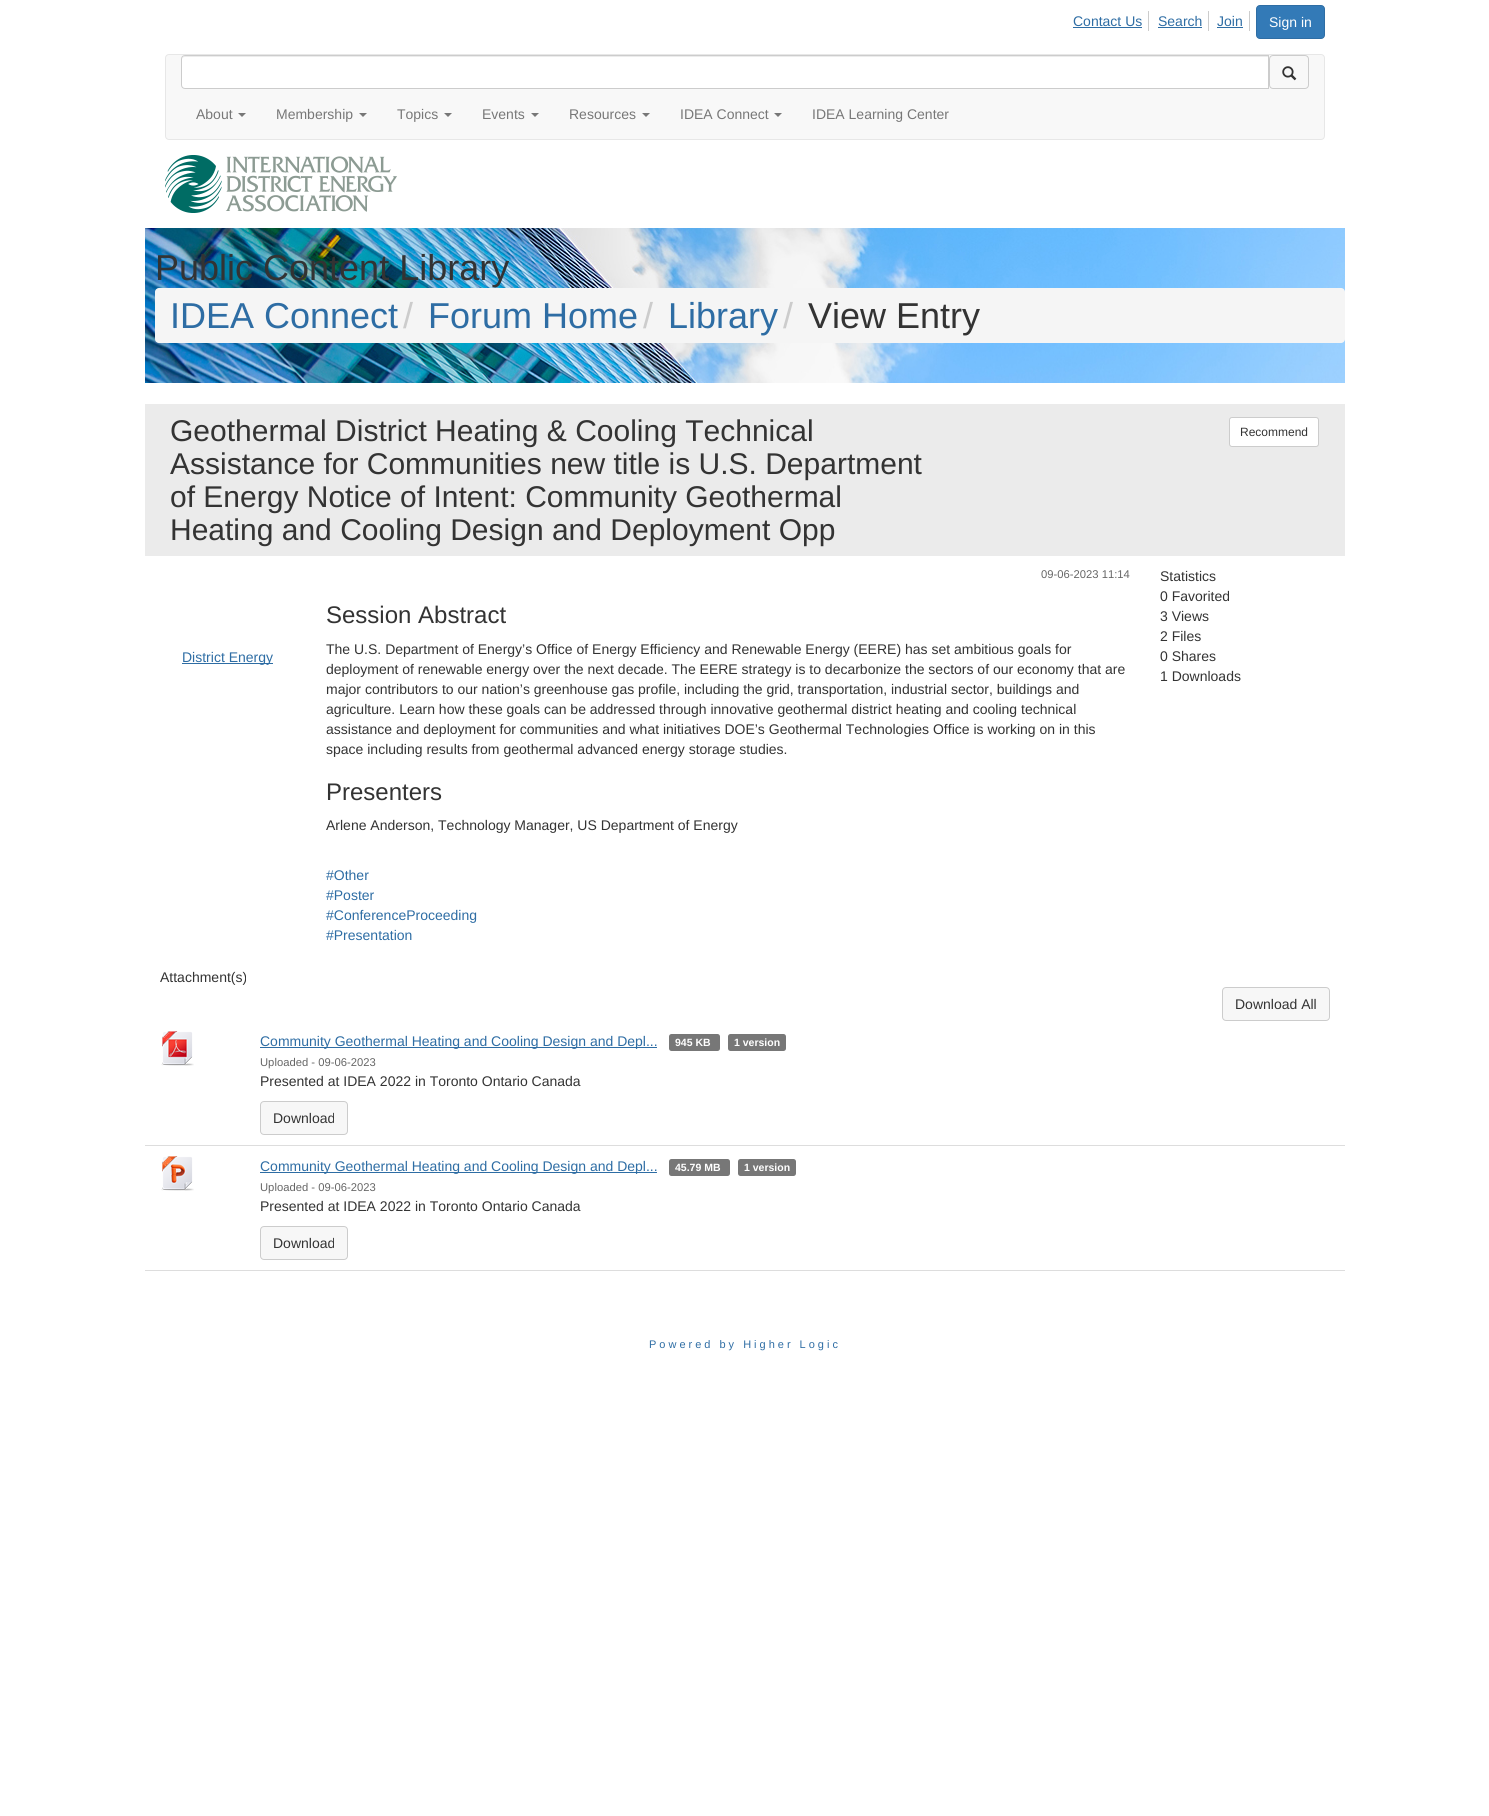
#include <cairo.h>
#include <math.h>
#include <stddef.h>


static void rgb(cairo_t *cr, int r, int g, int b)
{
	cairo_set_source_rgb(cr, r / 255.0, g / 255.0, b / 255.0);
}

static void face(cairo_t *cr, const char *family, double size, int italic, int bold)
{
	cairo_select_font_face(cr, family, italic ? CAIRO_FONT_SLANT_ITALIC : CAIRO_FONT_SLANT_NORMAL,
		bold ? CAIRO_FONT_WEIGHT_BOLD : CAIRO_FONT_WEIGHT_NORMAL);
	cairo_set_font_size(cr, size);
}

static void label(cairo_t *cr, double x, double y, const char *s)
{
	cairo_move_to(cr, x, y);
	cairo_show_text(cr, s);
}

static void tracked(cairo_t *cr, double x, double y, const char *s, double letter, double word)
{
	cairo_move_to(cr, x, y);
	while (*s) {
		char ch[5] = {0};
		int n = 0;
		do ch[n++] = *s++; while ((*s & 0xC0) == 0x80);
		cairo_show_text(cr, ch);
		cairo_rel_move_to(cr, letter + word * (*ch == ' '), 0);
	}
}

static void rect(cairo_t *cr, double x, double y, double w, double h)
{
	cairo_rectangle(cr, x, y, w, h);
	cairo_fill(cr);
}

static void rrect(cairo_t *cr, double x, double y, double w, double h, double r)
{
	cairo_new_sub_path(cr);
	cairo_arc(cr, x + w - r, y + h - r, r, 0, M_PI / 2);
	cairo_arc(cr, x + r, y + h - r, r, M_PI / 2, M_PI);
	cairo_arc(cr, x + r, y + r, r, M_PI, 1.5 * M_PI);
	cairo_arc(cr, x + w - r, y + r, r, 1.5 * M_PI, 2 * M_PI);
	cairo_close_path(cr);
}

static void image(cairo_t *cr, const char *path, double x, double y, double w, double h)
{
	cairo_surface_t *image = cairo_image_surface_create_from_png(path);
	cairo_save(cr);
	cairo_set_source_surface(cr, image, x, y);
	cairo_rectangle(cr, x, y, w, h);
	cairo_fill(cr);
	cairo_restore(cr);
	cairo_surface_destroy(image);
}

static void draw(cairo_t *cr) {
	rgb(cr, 255, 255, 255);
	cairo_paint(cr);
	rgb(cr, 204, 204, 204);
	rect(cr, 1148, 11, 1, 20);
	face(cr, "Liberation Sans", 14, 0, 0);
	rgb(cr, 46, 109, 164);
	label(cr, 1073, 26, "Contact Us");
	rect(cr, 1073, 27, 69, 1);
	rgb(cr, 204, 204, 204);
	rect(cr, 1208, 11, 1, 20);
	rgb(cr, 46, 109, 164);
	label(cr, 1158, 26, "Search");
	rect(cr, 1158, 27, 44, 1);
	rgb(cr, 204, 204, 204);
	rect(cr, 1249, 11, 1, 20);
	rgb(cr, 46, 109, 164);
	label(cr, 1217, 26, "Join");
	rect(cr, 1217, 27, 26, 1);
	rgb(cr, 51, 122, 183);
	rrect(cr, 1256.5, 5.5, 68, 33, 3.5);
	cairo_fill_preserve(cr);
	rgb(cr, 46, 109, 164);
	cairo_set_line_width(cr, 1);
	cairo_stroke(cr);
	rgb(cr, 255, 255, 255);
	label(cr, 1269, 27, "Sign in");
	rgb(cr, 248, 248, 248);
	rrect(cr, 165.5, 54.5, 1159, 85, 3.5);
	cairo_fill_preserve(cr);
	rgb(cr, 231, 231, 231);
	cairo_stroke(cr);
	rgb(cr, 255, 255, 255);
	cairo_new_path(cr);
	cairo_move_to(cr, 185, 55);
	cairo_line_to(cr, 1269, 55);
	cairo_line_to(cr, 1269, 89);
	cairo_line_to(cr, 185, 89);
	cairo_curve_to(cr, 183, 89, 181, 87, 181, 85);
	cairo_line_to(cr, 181, 59);
	cairo_curve_to(cr, 181, 57, 183, 55, 185, 55);
	cairo_close_path(cr);
	cairo_fill(cr);
	rgb(cr, 236, 236, 236);
	cairo_new_path(cr);
	cairo_move_to(cr, 185, 57);
	cairo_line_to(cr, 1268, 57);
	cairo_line_to(cr, 1268, 56);
	cairo_line_to(cr, 185, 56);
	cairo_curve_to(cr, 183, 56, 182, 58, 182, 60);
	cairo_curve_to(cr, 182, 58, 183, 57, 185, 57);
	cairo_close_path(cr);
	cairo_fill(cr);
	cairo_new_path(cr);
	cairo_move_to(cr, 185, 55.5);
	cairo_line_to(cr, 1268.5, 55.5);
	cairo_line_to(cr, 1268.5, 88.5);
	cairo_line_to(cr, 185, 88.5);
	cairo_curve_to(cr, 183, 88.5, 181.5, 87, 181.5, 85);
	cairo_line_to(cr, 181.5, 59);
	cairo_curve_to(cr, 181.5, 57, 183, 55.5, 185, 55.5);
	cairo_close_path(cr);
	rgb(cr, 204, 204, 204);
	cairo_stroke(cr);
	rrect(cr, 1269.5, 55.5, 39, 33, 3.5);
	cairo_stroke(cr);
	image(cr, "image0.png", 1282, 66, 15, 15);
	rgb(cr, 119, 119, 119);
	label(cr, 196, 119, "About");
	cairo_new_path(cr);
	cairo_move_to(cr, 238, 113);
	cairo_line_to(cr, 246, 113);
	cairo_line_to(cr, 242, 117);
	cairo_close_path(cr);
	cairo_fill(cr);
	label(cr, 276, 119, "Membership");
	cairo_new_path(cr);
	cairo_move_to(cr, 359, 113);
	cairo_line_to(cr, 367, 113);
	cairo_line_to(cr, 363, 117);
	cairo_close_path(cr);
	cairo_fill(cr);
	label(cr, 397, 119, "Topics");
	cairo_new_path(cr);
	cairo_move_to(cr, 444, 113);
	cairo_line_to(cr, 452, 113);
	cairo_line_to(cr, 448, 117);
	cairo_close_path(cr);
	cairo_fill(cr);
	label(cr, 482, 119, "Events");
	cairo_new_path(cr);
	cairo_move_to(cr, 531, 113);
	cairo_line_to(cr, 539, 113);
	cairo_line_to(cr, 535, 117);
	cairo_close_path(cr);
	cairo_fill(cr);
	label(cr, 569, 119, "Resources");
	cairo_new_path(cr);
	cairo_move_to(cr, 642, 113);
	cairo_line_to(cr, 650, 113);
	cairo_line_to(cr, 646, 117);
	cairo_close_path(cr);
	cairo_fill(cr);
	label(cr, 680, 119, "IDEA Connect");
	cairo_new_path(cr);
	cairo_move_to(cr, 774, 113);
	cairo_line_to(cr, 782, 113);
	cairo_line_to(cr, 778, 117);
	cairo_close_path(cr);
	cairo_fill(cr);
	label(cr, 812, 119, "IDEA Learning Center");
	image(cr, "image1.png", 165, 155, 232, 58);
	image(cr, "image2.png", 145, 228, 1200, 155);
	face(cr, "Liberation Sans", 36, 0, 0);
	rgb(cr, 51, 51, 51);
	label(cr, 155, 280, "Public Content Library");
	rgb(cr, 245, 245, 245);
	rrect(cr, 155, 288, 1190, 55, 4);
	cairo_fill(cr);
	rgb(cr, 46, 109, 164);
	label(cr, 170, 328, "IDEA Connect");
	rgb(cr, 204, 204, 204);
	label(cr, 403, 328, "/");
	rgb(cr, 46, 109, 164);
	label(cr, 428, 328, "Forum Home");
	rgb(cr, 204, 204, 204);
	label(cr, 643, 328, "/");
	rgb(cr, 46, 109, 164);
	label(cr, 668, 328, "Library");
	rgb(cr, 204, 204, 204);
	label(cr, 783, 328, "/");
	rgb(cr, 51, 51, 51);
	label(cr, 808, 328, "View Entry");
	rgb(cr, 235, 235, 235);
	rect(cr, 145, 404, 1200, 152);
	face(cr, "Liberation Sans", 30, 0, 0);
	rgb(cr, 51, 51, 51);
	label(cr, 170, 441, "Geothermal District Heating & Cooling Technical");
	label(cr, 170, 474, "Assistance for Communities new title is U.S. Department");
	label(cr, 170, 507, "of Energy Notice of Intent: Community Geothermal");
	label(cr, 170, 540, "Heating and Cooling Design and Deployment Opp");
	rgb(cr, 255, 255, 255);
	rrect(cr, 1229.5, 417.5, 89, 29, 2.5);
	cairo_fill_preserve(cr);
	rgb(cr, 204, 204, 204);
	cairo_stroke(cr);
	face(cr, "Liberation Sans", 12, 0, 0);
	rgb(cr, 51, 51, 51);
	label(cr, 1240, 436, "Recommend");
	face(cr, "Liberation Sans", 11.25, 0, 0);
	rgb(cr, 102, 102, 102);
	label(cr, 1041, 578, "09-06-2023 11:14");
	rgb(cr, 46, 109, 164);
	rect(cr, 182, 663, 91, 1);
	face(cr, "Liberation Sans", 14, 0, 0);
	label(cr, 182, 662, "District Energy");
	face(cr, "Liberation Sans", 24, 0, 0);
	rgb(cr, 51, 51, 51);
	label(cr, 326, 623, "Session Abstract");
	face(cr, "Liberation Sans", 14, 0, 0);
	label(cr, 326, 654, "The U.S. Department of Energy’s Office of Energy Efficiency and Renewable Energy (EERE) has set ambitious goals for");
	label(cr, 326, 674, "deployment of renewable energy over the next decade. The EERE strategy is to decarbonize the sectors of our economy that are");
	label(cr, 326, 694, "major contributors to our nation’s greenhouse gas profile, including the grid, transportation, industrial sector, buildings and");
	label(cr, 326, 714, "agriculture. Learn how these goals can be addressed through innovative geothermal district heating and cooling technical");
	label(cr, 326, 734, "assistance and deployment for communities and what initiatives DOE’s Geothermal Technologies Office is working on in this");
	label(cr, 326, 754, "space including results from geothermal advanced energy storage studies.");
	face(cr, "Liberation Sans", 24, 0, 0);
	label(cr, 326, 800, "Presenters");
	face(cr, "Liberation Sans", 14, 0, 0);
	label(cr, 326, 830, "Arlene Anderson, Technology Manager, US Department of Energy");
	rgb(cr, 46, 109, 164);
	label(cr, 326, 880, "#Other");
	label(cr, 326, 900, "#Poster");
	label(cr, 326, 920, "#ConferenceProceeding");
	label(cr, 326, 940, "#Presentation");
	rgb(cr, 51, 51, 51);
	label(cr, 1160, 581, "Statistics");
	label(cr, 1160, 601, "0 Favorited");
	label(cr, 1160, 621, "3 Views");
	label(cr, 1160, 641, "2 Files");
	label(cr, 1160, 661, "0 Shares");
	label(cr, 1160, 681, "1 Downloads");
	label(cr, 160, 982, "Attachment(s)");
	rgb(cr, 247, 247, 247);
	rrect(cr, 1222.5, 987.5, 107, 33, 3.5);
	cairo_fill_preserve(cr);
	rgb(cr, 204, 204, 204);
	cairo_stroke(cr);
	rgb(cr, 51, 51, 51);
	label(cr, 1235, 1009, "Download All");
	rgb(cr, 221, 221, 221);
	rect(cr, 145, 1145, 1200, 1);
	image(cr, "image3.png", 161, 1031, 33, 35);
	rgb(cr, 46, 109, 164);
	rect(cr, 260, 1047, 397, 1);
	label(cr, 260, 1046, "Community Geothermal Heating and Cooling Design and Depl...");
	rgb(cr, 119, 119, 119);
	rrect(cr, 669, 1034, 51, 17, 2.5);
	cairo_fill(cr);
	face(cr, "Liberation Sans", 10.5, 0, 1);
	rgb(cr, 255, 255, 255);
	label(cr, 675, 1046, "945 KB");
	rgb(cr, 119, 119, 119);
	rrect(cr, 728, 1034, 58, 17, 2.5);
	cairo_fill(cr);
	rgb(cr, 255, 255, 255);
	label(cr, 734, 1046, "1 version");
	face(cr, "Liberation Sans", 11.25, 0, 0);
	rgb(cr, 102, 102, 102);
	label(cr, 260, 1066, "Uploaded - 09-06-2023");
	face(cr, "Liberation Sans", 14, 0, 0);
	rgb(cr, 51, 51, 51);
	label(cr, 260, 1086, "Presented at IDEA 2022 in Toronto Ontario Canada");
	rgb(cr, 247, 247, 247);
	rrect(cr, 260.5, 1101.5, 87, 33, 3.5);
	cairo_fill_preserve(cr);
	rgb(cr, 204, 204, 204);
	cairo_stroke(cr);
	rgb(cr, 51, 51, 51);
	label(cr, 273, 1123, "Download");
	rgb(cr, 221, 221, 221);
	rect(cr, 145, 1270, 1200, 1);
	image(cr, "image4.png", 161, 1156, 33, 35);
	rgb(cr, 46, 109, 164);
	rect(cr, 260, 1172, 397, 1);
	label(cr, 260, 1171, "Community Geothermal Heating and Cooling Design and Depl...");
	rgb(cr, 119, 119, 119);
	rrect(cr, 669, 1159, 61, 17, 2.5);
	cairo_fill(cr);
	face(cr, "Liberation Sans", 10.5, 0, 1);
	rgb(cr, 255, 255, 255);
	label(cr, 675, 1171, "45.79 MB");
	rgb(cr, 119, 119, 119);
	rrect(cr, 738, 1159, 58, 17, 2.5);
	cairo_fill(cr);
	rgb(cr, 255, 255, 255);
	label(cr, 744, 1171, "1 version");
	face(cr, "Liberation Sans", 11.25, 0, 0);
	rgb(cr, 102, 102, 102);
	label(cr, 260, 1191, "Uploaded - 09-06-2023");
	face(cr, "Liberation Sans", 14, 0, 0);
	rgb(cr, 51, 51, 51);
	label(cr, 260, 1211, "Presented at IDEA 2022 in Toronto Ontario Canada");
	rgb(cr, 247, 247, 247);
	rrect(cr, 260.5, 1226.5, 87, 33, 3.5);
	cairo_fill_preserve(cr);
	rgb(cr, 204, 204, 204);
	cairo_stroke(cr);
	rgb(cr, 51, 51, 51);
	label(cr, 273, 1248, "Download");
	face(cr, "Liberation Sans", 11, 0, 0);
	rgb(cr, 46, 109, 164);
	tracked(cr, 649, 1348, "Powered by Higher Logic", 3, 0);
}

int main(void) {
	cairo_surface_t *surface = cairo_image_surface_create(CAIRO_FORMAT_RGB24, 1489, 1816);
	cairo_t *cr = cairo_create(surface);
	cairo_font_options_t *options = cairo_font_options_create();
	cairo_font_options_set_hint_metrics(options, CAIRO_HINT_METRICS_OFF);
	cairo_font_options_set_hint_style(options, CAIRO_HINT_STYLE_NONE);
	cairo_set_font_options(cr, options);
	cairo_set_miter_limit(cr, 4);
	draw(cr);
	cairo_surface_write_to_png(surface, "render.png");
	cairo_font_options_destroy(options);
	cairo_destroy(cr);
	cairo_surface_destroy(surface);
	return 0;
}
